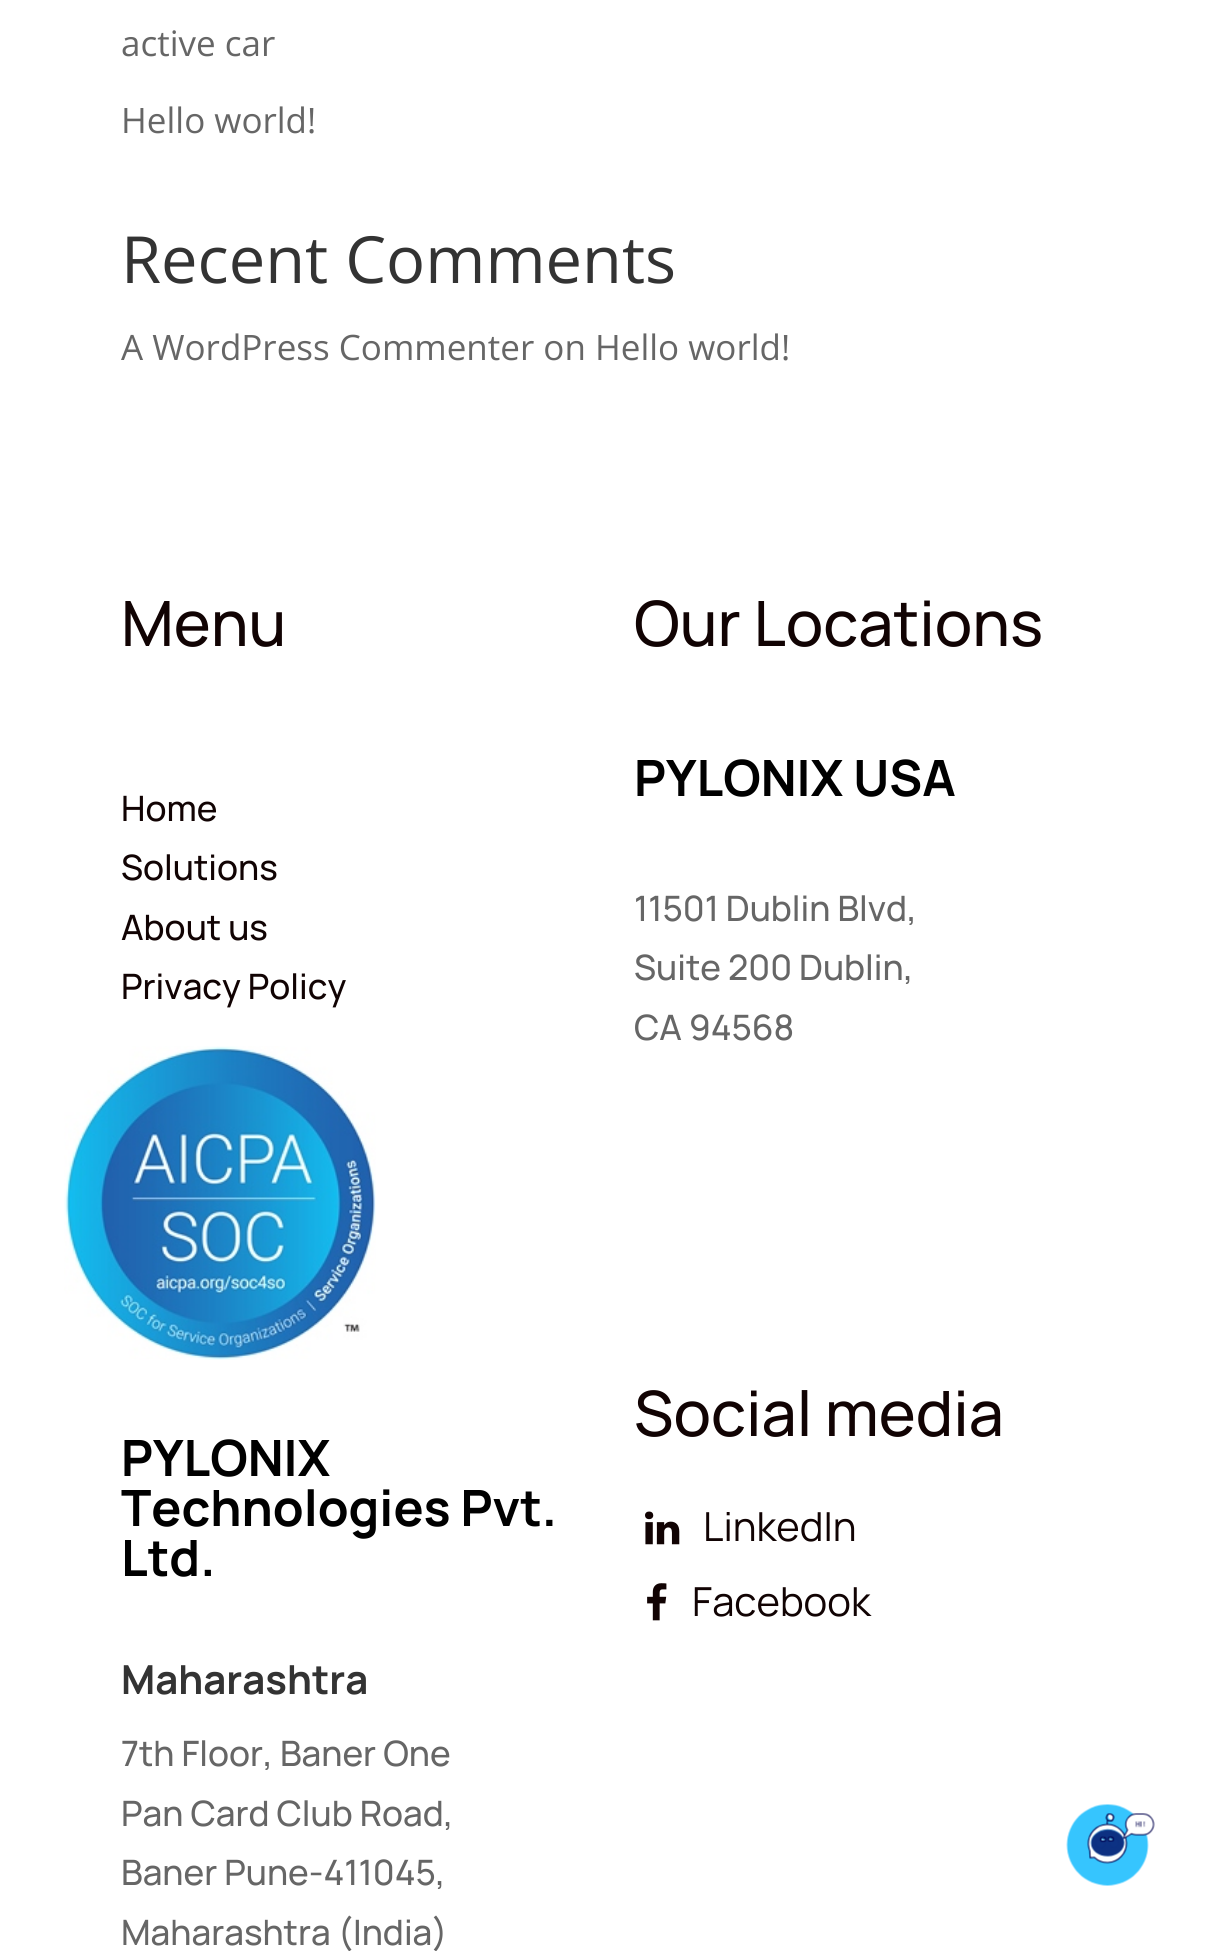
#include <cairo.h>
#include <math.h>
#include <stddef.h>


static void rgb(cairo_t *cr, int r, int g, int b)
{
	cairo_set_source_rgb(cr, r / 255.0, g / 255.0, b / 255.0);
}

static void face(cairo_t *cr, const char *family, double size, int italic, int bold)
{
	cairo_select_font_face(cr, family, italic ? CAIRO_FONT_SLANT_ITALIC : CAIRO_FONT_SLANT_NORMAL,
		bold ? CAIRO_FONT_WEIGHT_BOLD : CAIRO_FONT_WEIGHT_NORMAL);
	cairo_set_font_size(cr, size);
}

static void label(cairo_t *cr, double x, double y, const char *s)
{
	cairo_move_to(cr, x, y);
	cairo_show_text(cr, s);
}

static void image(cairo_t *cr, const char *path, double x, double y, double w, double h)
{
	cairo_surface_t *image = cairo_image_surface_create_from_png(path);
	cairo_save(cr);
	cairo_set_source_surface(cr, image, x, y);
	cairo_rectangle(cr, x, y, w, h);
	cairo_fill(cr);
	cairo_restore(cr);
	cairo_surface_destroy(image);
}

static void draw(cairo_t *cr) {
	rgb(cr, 255, 255, 255);
	cairo_paint(cr);
	face(cr, "Open Sans", 35, 0, 0);
	rgb(cr, 102, 102, 102);
	label(cr, 121, 56, "active car");
	label(cr, 121, 133, "Hello world!");
	face(cr, "Open Sans", 65, 0, 0);
	rgb(cr, 51, 51, 51);
	label(cr, 121, 283, "Recent Comments");
	face(cr, "Open Sans", 35, 0, 0);
	rgb(cr, 102, 102, 102);
	label(cr, 121, 360, "A WordPress Commenter on Hello world!");
	face(cr, "Manrope Medium", 62.5, 0, 0);
	rgb(cr, 17, 3, 3);
	label(cr, 121, 646, "Menu");
	face(cr, "Manrope Medium", 35, 0, 0);
	label(cr, 121, 821, "Home");
	label(cr, 121, 880, "Solutions");
	label(cr, 121, 940, "About us");
	label(cr, 121, 999, "Privacy Policy");
	image(cr, "image0.png", 64, 1046, 312, 314);
	face(cr, "Manrope Medium", 62.5, 0, 0);
	label(cr, 634, 646, "Our Locations");
	face(cr, "Manrope", 50, 0, 1);
	rgb(cr, 0, 0, 0);
	label(cr, 634, 796, "PYLONIX USA");
	face(cr, "Manrope Medium", 35, 0, 0);
	rgb(cr, 102, 102, 102);
	label(cr, 634, 921, "11501 Dublin Blvd,");
	label(cr, 634, 980, "Suite 200 Dublin,");
	label(cr, 634, 1040, "CA 94568");
	face(cr, "Manrope", 50, 0, 1);
	rgb(cr, 0, 0, 0);
	label(cr, 121, 1476, "PYLONIX");
	label(cr, 121, 1526, "Technologies Pvt.");
	label(cr, 121, 1576, "Ltd.");
	face(cr, "Manrope", 40, 0, 1);
	rgb(cr, 51, 51, 51);
	label(cr, 121, 1694, "Maharashtra");
	face(cr, "Manrope Medium", 35, 0, 0);
	rgb(cr, 102, 102, 102);
	label(cr, 121, 1766, "7th Floor, Baner One");
	label(cr, 121, 1826, "Pan Card Club Road,");
	label(cr, 121, 1885, "Baner Pune-411045,");
	label(cr, 121, 1945, "Maharashtra (India)");
	face(cr, "Manrope Medium", 62.5, 0, 0);
	rgb(cr, 17, 3, 3);
	label(cr, 634, 1436, "Social media");
	image(cr, "image1.png", 645, 1511, 35, 34);
	face(cr, "Manrope", 40, 0, 0);
	label(cr, 703, 1541, "LinkedIn");
	image(cr, "image2.png", 647, 1583, 20, 38);
	label(cr, 692, 1616, "Facebook");
	image(cr, "image3.png", 1066, 1804, 89, 82);
}

int main(void) {
	cairo_surface_t *surface = cairo_image_surface_create(CAIRO_FORMAT_RGB24, 1213, 1951);
	cairo_t *cr = cairo_create(surface);
	cairo_font_options_t *options = cairo_font_options_create();
	cairo_font_options_set_hint_metrics(options, CAIRO_HINT_METRICS_OFF);
	cairo_font_options_set_hint_style(options, CAIRO_HINT_STYLE_NONE);
	cairo_set_font_options(cr, options);
	cairo_set_miter_limit(cr, 4);
	draw(cr);
	cairo_surface_write_to_png(surface, "render.png");
	cairo_font_options_destroy(options);
	cairo_destroy(cr);
	cairo_surface_destroy(surface);
	return 0;
}
